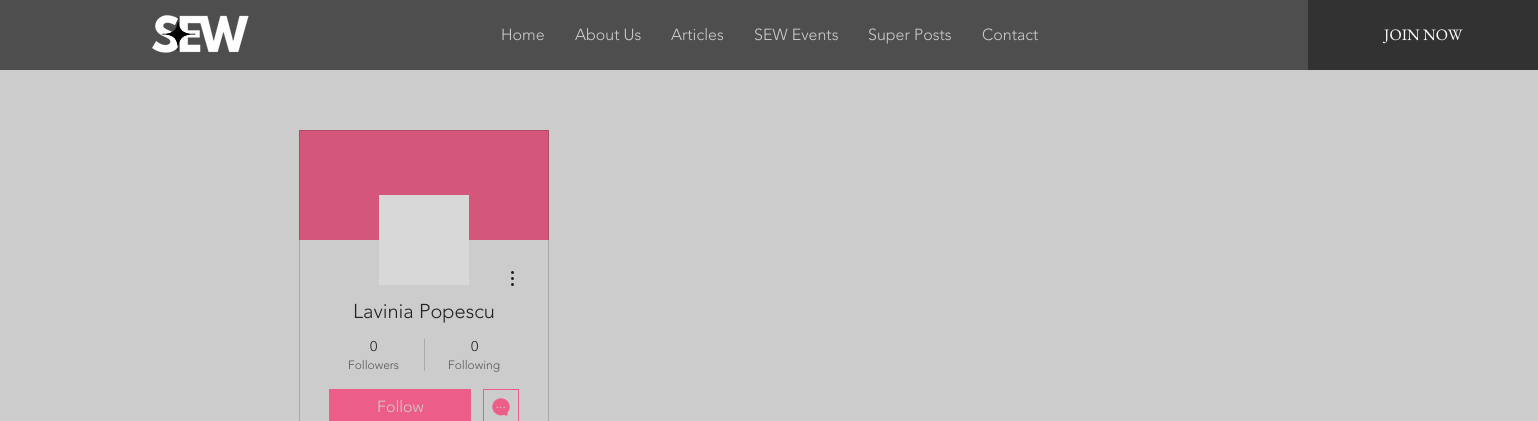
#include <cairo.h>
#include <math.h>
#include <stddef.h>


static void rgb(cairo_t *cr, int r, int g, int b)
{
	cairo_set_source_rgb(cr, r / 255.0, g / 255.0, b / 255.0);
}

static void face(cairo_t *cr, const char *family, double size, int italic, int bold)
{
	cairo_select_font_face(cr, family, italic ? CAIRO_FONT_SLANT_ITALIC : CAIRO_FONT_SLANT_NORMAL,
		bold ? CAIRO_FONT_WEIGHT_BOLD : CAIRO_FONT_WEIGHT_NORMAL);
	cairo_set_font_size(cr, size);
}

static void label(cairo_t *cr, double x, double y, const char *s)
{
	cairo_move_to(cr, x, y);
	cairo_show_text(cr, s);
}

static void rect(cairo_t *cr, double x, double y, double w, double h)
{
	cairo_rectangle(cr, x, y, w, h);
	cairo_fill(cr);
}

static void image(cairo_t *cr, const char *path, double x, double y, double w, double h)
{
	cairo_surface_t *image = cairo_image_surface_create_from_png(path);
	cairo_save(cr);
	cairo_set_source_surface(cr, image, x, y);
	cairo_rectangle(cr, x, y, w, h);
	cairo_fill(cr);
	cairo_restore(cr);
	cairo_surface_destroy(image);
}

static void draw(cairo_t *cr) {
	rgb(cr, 204, 204, 204);
	cairo_paint(cr);
	rgb(cr, 78, 78, 78);
	rect(cr, 0, 0, 1308, 70);
	image(cr, "image0.png", 152, 15, 97, 38);
	face(cr, "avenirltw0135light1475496 Light", 16, 0, 0);
	rgb(cr, 204, 204, 204);
	label(cr, 501, 40, "Home");
	label(cr, 575, 40, "About Us");
	label(cr, 671, 40, "Articles");
	label(cr, 754, 40, "SEW Events");
	label(cr, 868, 40, "Super Posts");
	label(cr, 982, 40, "Contact");
	rgb(cr, 50, 50, 50);
	rect(cr, 1308, 0, 230, 70);
	face(cr, "EB Garamond", 16, 0, 0);
	rgb(cr, 255, 255, 255);
	label(cr, 1384, 40, "JOIN NOW");
	rgb(cr, 212, 87, 123);
	rect(cr, 299, 130, 250, 110);
	cairo_rectangle(cr, 299.5, 130.5, 249, 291);
	cairo_set_source_rgba(cr, 0.133, 0.133, 0.133, 0.2);
	cairo_set_line_width(cr, 1);
	cairo_stroke(cr);
	rgb(cr, 216, 216, 216);
	rect(cr, 379, 195, 90, 90);
	image(cr, "image1.png", 511, 271, 3, 15);
	face(cr, "avenirltw0135light1475496 Light", 20, 0, 0);
	rgb(cr, 34, 34, 34);
	label(cr, 353, 318, "Lavinia Popescu");
	face(cr, "avenirltw0135light1475496 Light", 14, 0, 0);
	label(cr, 370, 351, "0");
	face(cr, "avenirltw0135light1475496 Light", 12, 0, 0);
	rgb(cr, 85, 85, 85);
	label(cr, 348, 369, "Followers");
	rgb(cr, 170, 170, 170);
	rect(cr, 424, 339, 1, 32);
	face(cr, "avenirltw0135light1475496 Light", 14, 0, 0);
	rgb(cr, 34, 34, 34);
	label(cr, 471, 351, "0");
	face(cr, "avenirltw0135light1475496 Light", 12, 0, 0);
	rgb(cr, 85, 85, 85);
	label(cr, 448, 369, "Following");
	rgb(cr, 236, 94, 135);
	rect(cr, 329, 389, 142, 32);
	face(cr, "avenirltw0135light1475496 Light", 16, 0, 0);
	rgb(cr, 204, 204, 204);
	label(cr, 377, 412, "Follow");
	cairo_rectangle(cr, 483.5, 389.5, 35, 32);
	rgb(cr, 236, 94, 135);
	cairo_stroke(cr);
	image(cr, "image2.png", 492, 398, 18, 18);
}

int main(void) {
	cairo_surface_t *surface = cairo_image_surface_create(CAIRO_FORMAT_RGB24, 1538, 421);
	cairo_t *cr = cairo_create(surface);
	cairo_font_options_t *options = cairo_font_options_create();
	cairo_font_options_set_hint_metrics(options, CAIRO_HINT_METRICS_OFF);
	cairo_font_options_set_hint_style(options, CAIRO_HINT_STYLE_NONE);
	cairo_set_font_options(cr, options);
	cairo_set_miter_limit(cr, 4);
	draw(cr);
	cairo_surface_write_to_png(surface, "render.png");
	cairo_font_options_destroy(options);
	cairo_destroy(cr);
	cairo_surface_destroy(surface);
	return 0;
}
